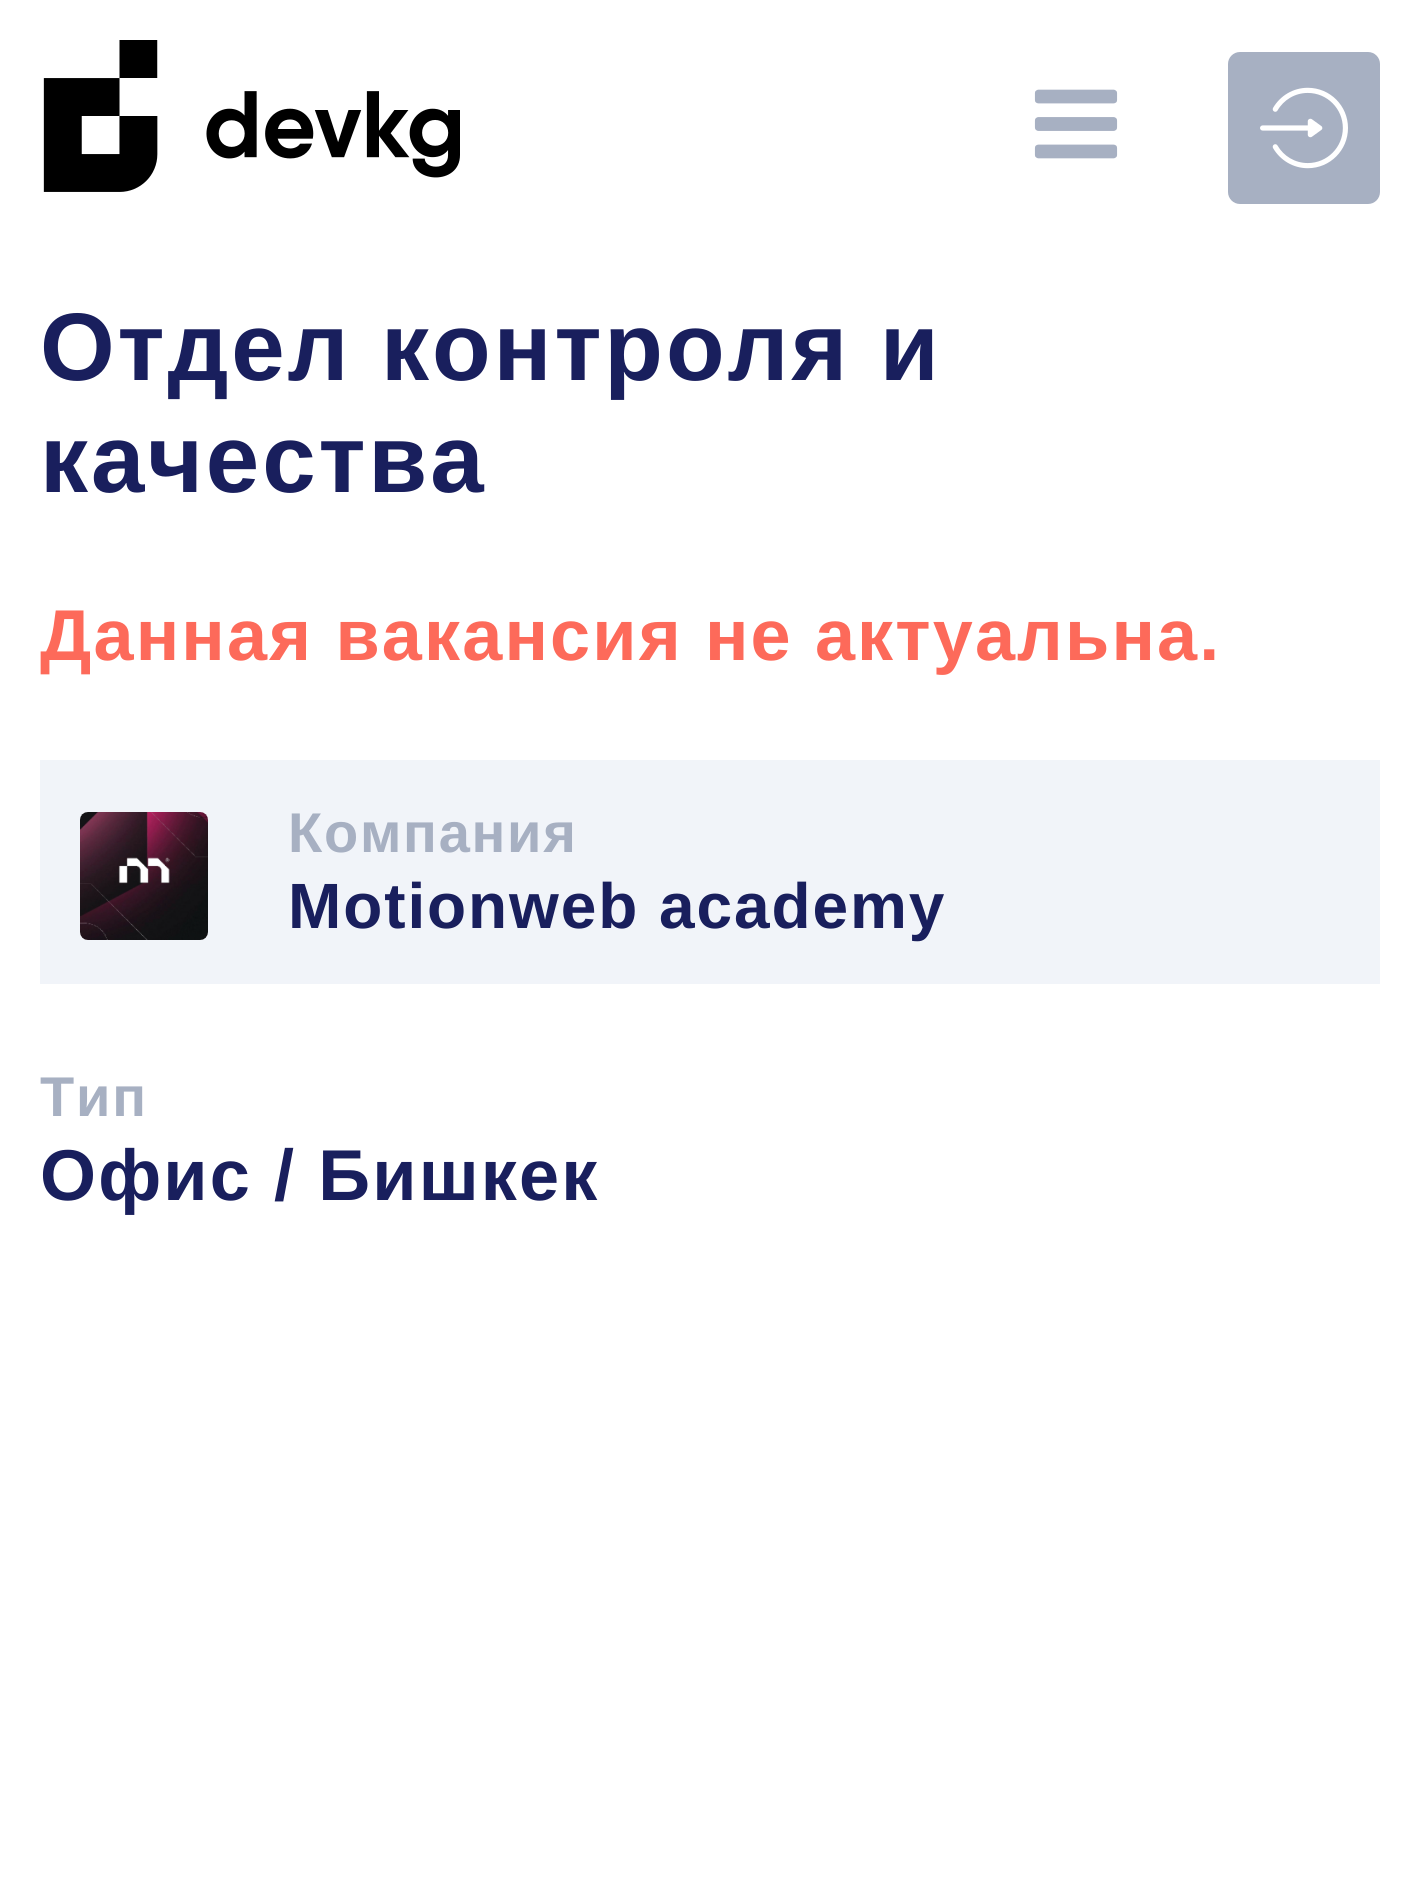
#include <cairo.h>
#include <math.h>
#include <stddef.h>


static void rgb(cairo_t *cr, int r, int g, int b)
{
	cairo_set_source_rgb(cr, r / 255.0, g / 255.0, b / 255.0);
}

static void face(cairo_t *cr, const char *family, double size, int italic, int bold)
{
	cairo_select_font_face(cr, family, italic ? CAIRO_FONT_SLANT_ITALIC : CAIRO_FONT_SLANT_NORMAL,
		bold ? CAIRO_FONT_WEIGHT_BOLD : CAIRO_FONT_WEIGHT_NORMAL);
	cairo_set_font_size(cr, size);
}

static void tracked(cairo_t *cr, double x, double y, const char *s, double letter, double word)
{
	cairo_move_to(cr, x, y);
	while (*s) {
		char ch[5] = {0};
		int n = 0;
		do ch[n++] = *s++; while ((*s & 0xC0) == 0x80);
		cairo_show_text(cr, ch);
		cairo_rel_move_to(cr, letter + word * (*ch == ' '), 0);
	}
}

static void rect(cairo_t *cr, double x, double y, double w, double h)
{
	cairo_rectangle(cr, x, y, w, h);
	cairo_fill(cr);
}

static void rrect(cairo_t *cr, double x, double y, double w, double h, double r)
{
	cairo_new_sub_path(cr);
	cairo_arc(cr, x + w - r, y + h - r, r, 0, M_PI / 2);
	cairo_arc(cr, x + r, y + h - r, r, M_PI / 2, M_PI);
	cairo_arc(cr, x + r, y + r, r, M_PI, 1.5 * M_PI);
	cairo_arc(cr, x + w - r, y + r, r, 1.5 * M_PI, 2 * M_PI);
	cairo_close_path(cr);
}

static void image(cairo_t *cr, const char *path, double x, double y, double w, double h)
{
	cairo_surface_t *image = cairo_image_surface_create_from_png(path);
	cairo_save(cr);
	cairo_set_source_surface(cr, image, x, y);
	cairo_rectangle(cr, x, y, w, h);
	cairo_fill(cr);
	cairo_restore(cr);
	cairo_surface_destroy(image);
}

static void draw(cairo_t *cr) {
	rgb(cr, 255, 255, 255);
	cairo_paint(cr);
	image(cr, "image0.png", 43, 40, 417, 152);
	image(cr, "image1.png", 1034, 89, 84, 70);
	rgb(cr, 167, 176, 194);
	rrect(cr, 1228, 52, 152, 152, 12);
	cairo_fill(cr);
	image(cr, "image2.png", 1260, 87, 88, 82);
	face(cr, "Liberation Sans", 96, 0, 1);
	rgb(cr, 25, 31, 93);
	tracked(cr, 40, 380, "Отдел контроля и", 2.9, 0);
	tracked(cr, 40, 492, "качества", 2.9, 0);
	face(cr, "Liberation Sans", 72, 0, 1);
	rgb(cr, 253, 106, 90);
	tracked(cr, 40, 660, "Данная вакансия не актуальна.", 2.15, 0);
	rgb(cr, 241, 244, 249);
	rect(cr, 40, 760, 1340, 224);
	rgb(cr, 255, 255, 255);
	rrect(cr, 80, 812, 128, 128, 8);
	cairo_fill(cr);
	image(cr, "image3.png", 80, 812, 128, 128);
	face(cr, "Liberation Sans", 56, 0, 1);
	rgb(cr, 167, 176, 194);
	tracked(cr, 288, 852, "Компания", 1.75, 0);
	face(cr, "Liberation Sans", 64, 0, 1);
	rgb(cr, 25, 31, 93);
	tracked(cr, 288, 928, "Motionweb academy", 1.9, 0);
	face(cr, "Liberation Sans", 56, 0, 1);
	rgb(cr, 167, 176, 194);
	tracked(cr, 40, 1116, "Тип", 1.75, 0);
	face(cr, "Liberation Sans", 72, 0, 1);
	rgb(cr, 25, 31, 93);
	tracked(cr, 40, 1200, "Офис / Бишкек", 2.15, 0);
}

int main(void) {
	cairo_surface_t *surface = cairo_image_surface_create(CAIRO_FORMAT_RGB24, 1419, 1898);
	cairo_t *cr = cairo_create(surface);
	cairo_font_options_t *options = cairo_font_options_create();
	cairo_font_options_set_hint_metrics(options, CAIRO_HINT_METRICS_OFF);
	cairo_font_options_set_hint_style(options, CAIRO_HINT_STYLE_NONE);
	cairo_set_font_options(cr, options);
	cairo_set_miter_limit(cr, 4);
	draw(cr);
	cairo_surface_write_to_png(surface, "render.png");
	cairo_font_options_destroy(options);
	cairo_destroy(cr);
	cairo_surface_destroy(surface);
	return 0;
}
